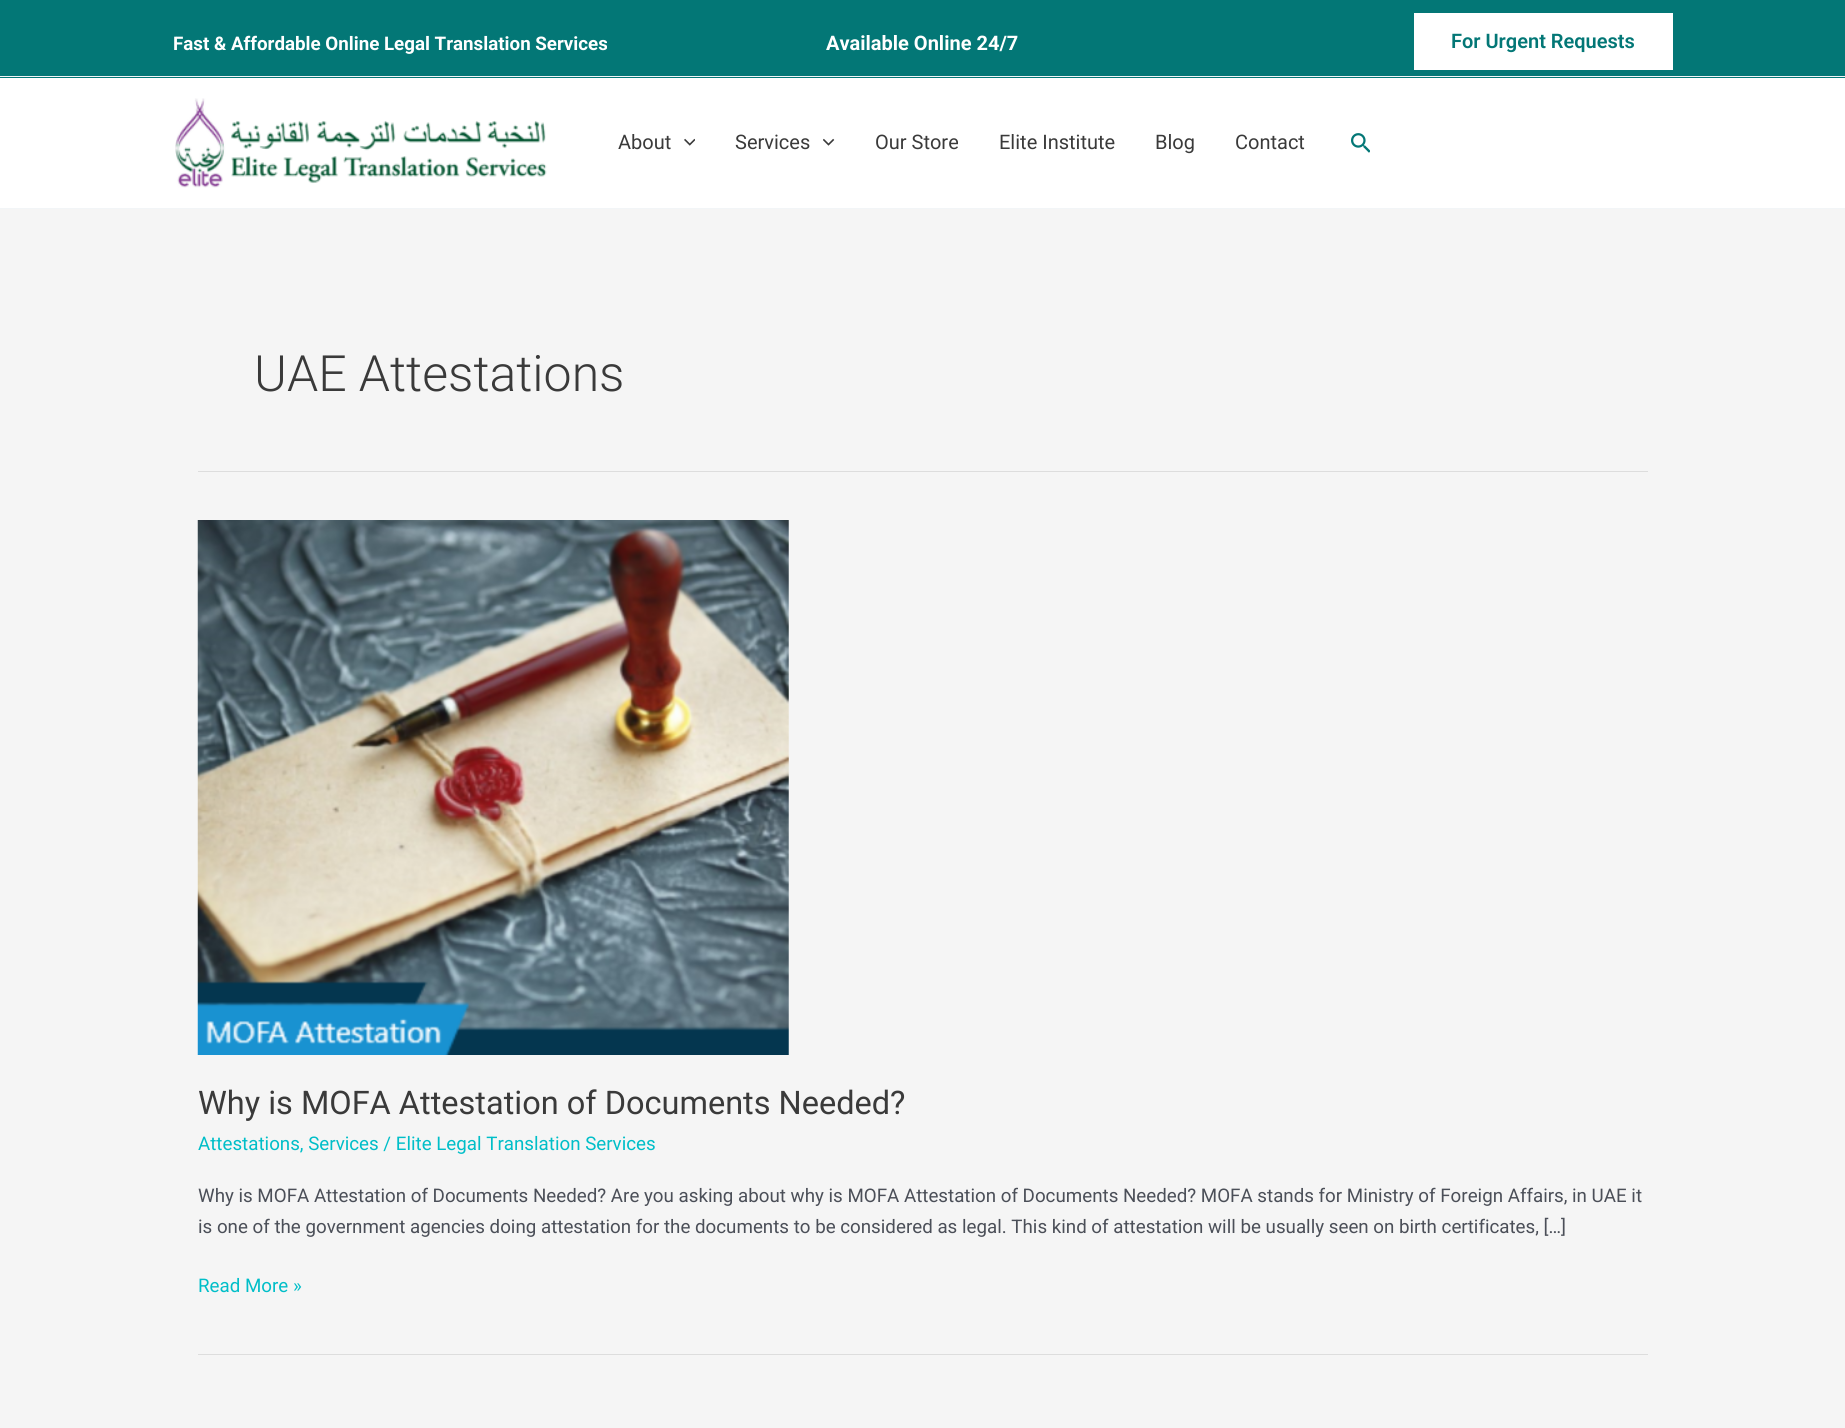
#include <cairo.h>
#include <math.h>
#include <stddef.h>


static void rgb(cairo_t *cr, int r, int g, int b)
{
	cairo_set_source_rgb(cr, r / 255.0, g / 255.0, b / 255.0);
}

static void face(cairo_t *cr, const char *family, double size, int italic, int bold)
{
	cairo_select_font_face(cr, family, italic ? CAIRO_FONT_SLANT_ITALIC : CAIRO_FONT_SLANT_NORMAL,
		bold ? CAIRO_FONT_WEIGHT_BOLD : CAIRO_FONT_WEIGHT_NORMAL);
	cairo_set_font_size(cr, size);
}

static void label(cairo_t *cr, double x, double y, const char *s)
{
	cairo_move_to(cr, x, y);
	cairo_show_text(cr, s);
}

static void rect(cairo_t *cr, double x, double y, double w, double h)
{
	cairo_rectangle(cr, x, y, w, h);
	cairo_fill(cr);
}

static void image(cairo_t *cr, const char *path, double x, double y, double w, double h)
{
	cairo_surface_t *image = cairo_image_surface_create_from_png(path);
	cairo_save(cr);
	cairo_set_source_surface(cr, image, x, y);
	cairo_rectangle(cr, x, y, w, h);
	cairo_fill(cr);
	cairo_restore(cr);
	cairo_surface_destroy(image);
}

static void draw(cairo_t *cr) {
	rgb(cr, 245, 245, 245);
	cairo_paint(cr);
	rgb(cr, 3, 119, 118);
	rect(cr, 0, 0, 1845, 78);
	rgb(cr, 242, 245, 247);
	rect(cr, 0, 76, 1845, 1);
	face(cr, "Roboto", 18.75, 0, 1);
	rgb(cr, 255, 255, 255);
	label(cr, 173, 50, "Fast & Affordable Online Legal Translation Services");
	face(cr, "Roboto", 20, 0, 1);
	label(cr, 826, 50, "Available Online 24/7");
	rect(cr, 1414, 13, 259, 57);
	face(cr, "Roboto SemiBold", 20, 0, 0);
	rgb(cr, 3, 119, 118);
	label(cr, 1451, 48, "For Urgent Requests");
	rgb(cr, 255, 255, 255);
	rect(cr, 0, 78, 1845, 130);
	rgb(cr, 242, 245, 247);
	rect(cr, 0, 208, 1845, 1);
	image(cr, "image0.png", 175, 98, 372, 90);
	face(cr, "Roboto", 20, 0, 0);
	rgb(cr, 58, 58, 58);
	label(cr, 618, 149, "About");
	image(cr, "image1.png", 684, 138, 11, 8);
	label(cr, 735, 149, "Services");
	image(cr, "image2.png", 823, 138, 12, 8);
	label(cr, 875, 149, "Our Store");
	label(cr, 999, 149, "Elite Institute");
	label(cr, 1155, 149, "Blog");
	label(cr, 1235, 149, "Contact");
	image(cr, "image3.png", 1351, 133, 19, 20);
	rgb(cr, 221, 221, 221);
	rect(cr, 198, 471, 1450, 1);
	face(cr, "Roboto Light", 50, 0, 0);
	rgb(cr, 58, 58, 58);
	label(cr, 254, 391, "UAE Attestations");
	rgb(cr, 221, 221, 221);
	rect(cr, 198, 1354, 1450, 1);
	image(cr, "image4.png", 197, 520, 592, 535);
	face(cr, "Roboto", 32.5, 0, 0);
	rgb(cr, 58, 58, 58);
	label(cr, 198, 1114, "Why is MOFA Attestation of Documents Needed?");
	face(cr, "Roboto", 18.75, 0, 0);
	rgb(cr, 0, 190, 200);
	label(cr, 198, 1150, "Attestations, Services / Elite Legal Translation Services");
	rgb(cr, 75, 79, 88);
	label(cr, 198, 1202, "Why is MOFA Attestation of Documents Needed? Are you asking about why is MOFA Attestation of Documents Needed? MOFA stands for Ministry of Foreign Affairs, in UAE it");
	label(cr, 198, 1233, "is one of the government agencies doing attestation for the documents to be considered as legal. This kind of attestation will be usually seen on birth certificates, […]");
	rgb(cr, 0, 190, 200);
	label(cr, 198, 1292, "Read More »");
}

int main(void) {
	cairo_surface_t *surface = cairo_image_surface_create(CAIRO_FORMAT_RGB24, 1845, 1428);
	cairo_t *cr = cairo_create(surface);
	cairo_font_options_t *options = cairo_font_options_create();
	cairo_font_options_set_hint_metrics(options, CAIRO_HINT_METRICS_OFF);
	cairo_font_options_set_hint_style(options, CAIRO_HINT_STYLE_NONE);
	cairo_set_font_options(cr, options);
	cairo_set_miter_limit(cr, 4);
	draw(cr);
	cairo_surface_write_to_png(surface, "render.png");
	cairo_font_options_destroy(options);
	cairo_destroy(cr);
	cairo_surface_destroy(surface);
	return 0;
}
